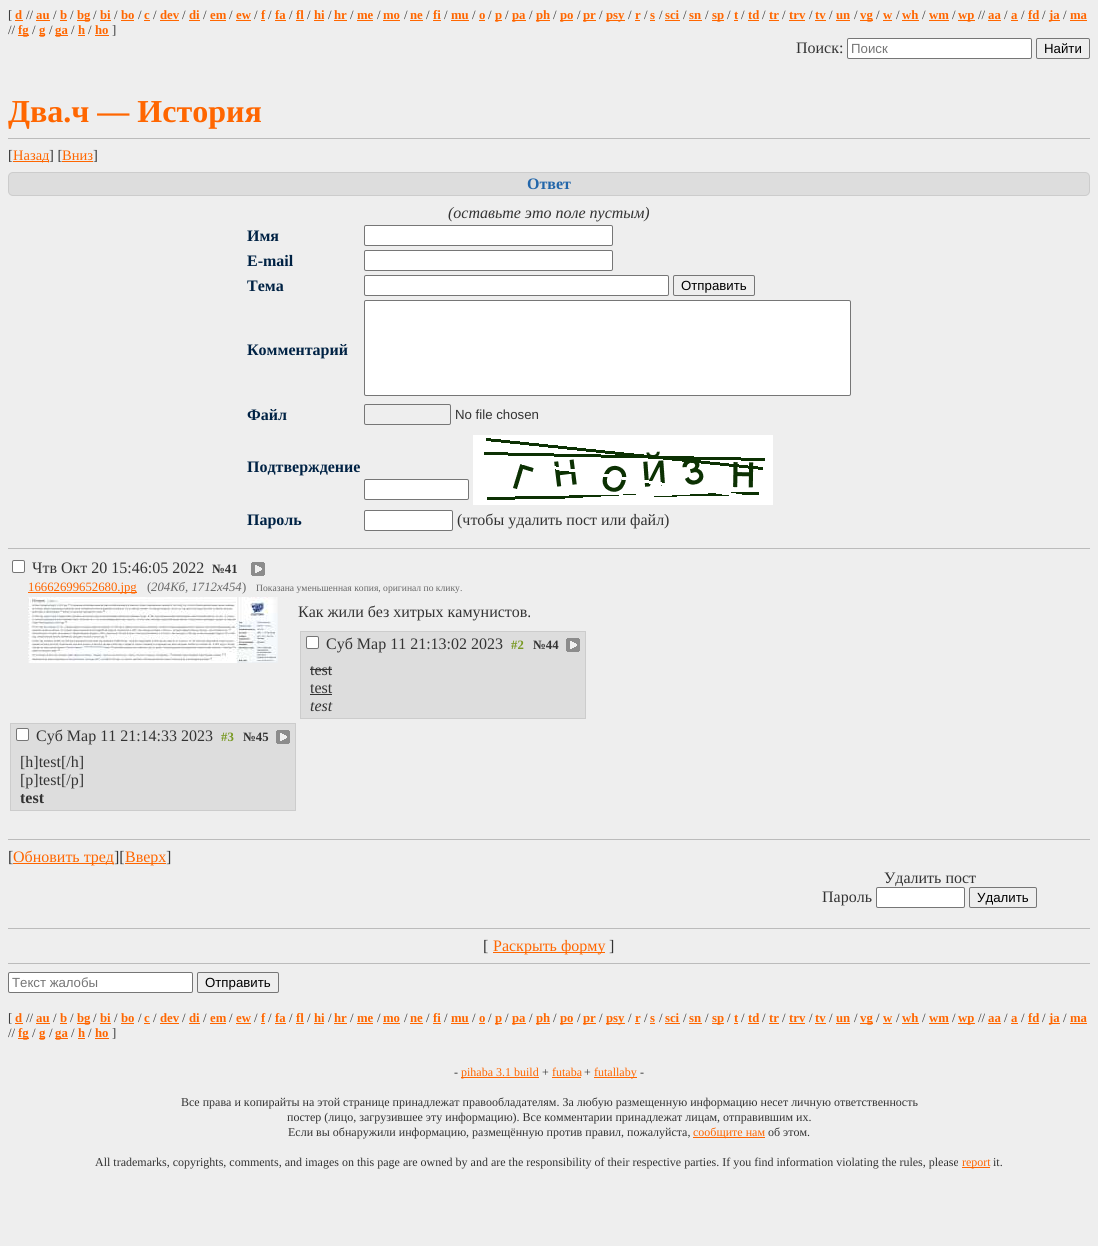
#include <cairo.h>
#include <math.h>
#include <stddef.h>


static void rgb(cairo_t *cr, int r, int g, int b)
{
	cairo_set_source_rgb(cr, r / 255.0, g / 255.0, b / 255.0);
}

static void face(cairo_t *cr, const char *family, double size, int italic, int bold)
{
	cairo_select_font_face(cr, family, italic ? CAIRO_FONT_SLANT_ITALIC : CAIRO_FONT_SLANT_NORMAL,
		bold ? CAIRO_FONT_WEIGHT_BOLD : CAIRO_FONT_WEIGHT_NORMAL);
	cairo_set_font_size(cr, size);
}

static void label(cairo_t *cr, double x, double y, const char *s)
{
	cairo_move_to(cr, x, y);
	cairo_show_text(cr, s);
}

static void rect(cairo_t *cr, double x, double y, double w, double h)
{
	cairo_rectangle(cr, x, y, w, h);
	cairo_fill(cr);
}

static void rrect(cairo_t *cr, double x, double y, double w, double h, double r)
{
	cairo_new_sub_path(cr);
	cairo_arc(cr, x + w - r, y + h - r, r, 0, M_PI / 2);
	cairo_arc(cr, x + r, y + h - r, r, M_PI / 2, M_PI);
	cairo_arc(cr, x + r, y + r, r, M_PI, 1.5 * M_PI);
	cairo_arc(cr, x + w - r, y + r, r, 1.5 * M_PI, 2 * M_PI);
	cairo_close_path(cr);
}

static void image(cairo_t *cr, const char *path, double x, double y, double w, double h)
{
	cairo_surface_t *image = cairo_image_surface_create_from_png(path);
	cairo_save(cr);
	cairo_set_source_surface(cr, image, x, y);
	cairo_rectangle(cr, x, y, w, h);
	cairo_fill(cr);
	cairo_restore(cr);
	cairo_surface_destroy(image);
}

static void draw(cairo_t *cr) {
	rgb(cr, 238, 238, 238);
	cairo_paint(cr);
	face(cr, "Liberation Serif", 12.75, 0, 0);
	rgb(cr, 51, 51, 51);
	label(cr, 8, 19, "[");
	face(cr, "Liberation Serif", 12.75, 0, 1);
	rgb(cr, 255, 102, 0);
	label(cr, 15, 19, "d");
	rect(cr, 15, 20, 8, 1);
	face(cr, "Liberation Serif", 12.75, 0, 0);
	rgb(cr, 51, 51, 51);
	label(cr, 26, 19, "//");
	face(cr, "Liberation Serif", 12.75, 0, 1);
	rgb(cr, 255, 102, 0);
	label(cr, 36, 19, "au");
	rect(cr, 36, 20, 14, 1);
	face(cr, "Liberation Serif", 12.75, 0, 0);
	rgb(cr, 51, 51, 51);
	label(cr, 53, 19, "/");
	face(cr, "Liberation Serif", 12.75, 0, 1);
	rgb(cr, 255, 102, 0);
	label(cr, 60, 19, "b");
	rect(cr, 60, 20, 7, 1);
	face(cr, "Liberation Serif", 12.75, 0, 0);
	rgb(cr, 51, 51, 51);
	label(cr, 70, 19, "/");
	rgb(cr, 255, 102, 0);
	rect(cr, 77, 20, 13, 1);
	face(cr, "Liberation Serif", 12.75, 0, 1);
	label(cr, 77, 19, "bg");
	face(cr, "Liberation Serif", 12.75, 0, 0);
	rgb(cr, 51, 51, 51);
	label(cr, 93, 19, "/");
	face(cr, "Liberation Serif", 12.75, 0, 1);
	rgb(cr, 255, 102, 0);
	label(cr, 100, 19, "bi");
	rect(cr, 100, 20, 11, 1);
	face(cr, "Liberation Serif", 12.75, 0, 0);
	rgb(cr, 51, 51, 51);
	label(cr, 114, 19, "/");
	face(cr, "Liberation Serif", 12.75, 0, 1);
	rgb(cr, 255, 102, 0);
	label(cr, 121, 19, "bo");
	rect(cr, 121, 20, 13, 1);
	face(cr, "Liberation Serif", 12.75, 0, 0);
	rgb(cr, 51, 51, 51);
	label(cr, 138, 19, "/");
	face(cr, "Liberation Serif", 12.75, 0, 1);
	rgb(cr, 255, 102, 0);
	label(cr, 144, 19, "c");
	rect(cr, 144, 20, 6, 1);
	face(cr, "Liberation Serif", 12.75, 0, 0);
	rgb(cr, 51, 51, 51);
	label(cr, 153, 19, "/");
	face(cr, "Liberation Serif", 12.75, 0, 1);
	rgb(cr, 255, 102, 0);
	label(cr, 160, 19, "dev");
	rect(cr, 160, 20, 19, 1);
	face(cr, "Liberation Serif", 12.75, 0, 0);
	rgb(cr, 51, 51, 51);
	label(cr, 182, 19, "/");
	face(cr, "Liberation Serif", 12.75, 0, 1);
	rgb(cr, 255, 102, 0);
	label(cr, 189, 19, "di");
	rect(cr, 189, 20, 11, 1);
	face(cr, "Liberation Serif", 12.75, 0, 0);
	rgb(cr, 51, 51, 51);
	label(cr, 203, 19, "/");
	face(cr, "Liberation Serif", 12.75, 0, 1);
	rgb(cr, 255, 102, 0);
	label(cr, 210, 19, "em");
	rect(cr, 210, 20, 16, 1);
	face(cr, "Liberation Serif", 12.75, 0, 0);
	rgb(cr, 51, 51, 51);
	label(cr, 229, 19, "/");
	face(cr, "Liberation Serif", 12.75, 0, 1);
	rgb(cr, 255, 102, 0);
	label(cr, 236, 19, "ew");
	rect(cr, 236, 20, 15, 1);
	face(cr, "Liberation Serif", 12.75, 0, 0);
	rgb(cr, 51, 51, 51);
	label(cr, 254, 19, "/");
	face(cr, "Liberation Serif", 12.75, 0, 1);
	rgb(cr, 255, 102, 0);
	label(cr, 261, 19, "f");
	rect(cr, 261, 20, 4, 1);
	face(cr, "Liberation Serif", 12.75, 0, 0);
	rgb(cr, 51, 51, 51);
	label(cr, 268, 19, "/");
	face(cr, "Liberation Serif", 12.75, 0, 1);
	rgb(cr, 255, 102, 0);
	label(cr, 275, 19, "fa");
	rect(cr, 275, 20, 11, 1);
	face(cr, "Liberation Serif", 12.75, 0, 0);
	rgb(cr, 51, 51, 51);
	label(cr, 289, 19, "/");
	face(cr, "Liberation Serif", 12.75, 0, 1);
	rgb(cr, 255, 102, 0);
	label(cr, 296, 19, "fl");
	rect(cr, 296, 20, 8, 1);
	face(cr, "Liberation Serif", 12.75, 0, 0);
	rgb(cr, 51, 51, 51);
	label(cr, 307, 19, "/");
	face(cr, "Liberation Serif", 12.75, 0, 1);
	rgb(cr, 255, 102, 0);
	label(cr, 314, 19, "hi");
	rect(cr, 314, 20, 10, 1);
	face(cr, "Liberation Serif", 12.75, 0, 0);
	rgb(cr, 51, 51, 51);
	label(cr, 328, 19, "/");
	face(cr, "Liberation Serif", 12.75, 0, 1);
	rgb(cr, 255, 102, 0);
	label(cr, 334, 19, "hr");
	rect(cr, 334, 20, 13, 1);
	face(cr, "Liberation Serif", 12.75, 0, 0);
	rgb(cr, 51, 51, 51);
	label(cr, 350, 19, "/");
	face(cr, "Liberation Serif", 12.75, 0, 1);
	rgb(cr, 255, 102, 0);
	label(cr, 357, 19, "me");
	rect(cr, 357, 20, 16, 1);
	face(cr, "Liberation Serif", 12.75, 0, 0);
	rgb(cr, 51, 51, 51);
	label(cr, 377, 19, "/");
	face(cr, "Liberation Serif", 12.75, 0, 1);
	rgb(cr, 255, 102, 0);
	label(cr, 383, 19, "mo");
	rect(cr, 383, 20, 17, 1);
	face(cr, "Liberation Serif", 12.75, 0, 0);
	rgb(cr, 51, 51, 51);
	label(cr, 404, 19, "/");
	face(cr, "Liberation Serif", 12.75, 0, 1);
	rgb(cr, 255, 102, 0);
	label(cr, 410, 19, "ne");
	rect(cr, 410, 20, 13, 1);
	face(cr, "Liberation Serif", 12.75, 0, 0);
	rgb(cr, 51, 51, 51);
	label(cr, 426, 19, "/");
	face(cr, "Liberation Serif", 12.75, 0, 1);
	rgb(cr, 255, 102, 0);
	label(cr, 433, 19, "fi");
	rect(cr, 433, 20, 8, 1);
	face(cr, "Liberation Serif", 12.75, 0, 0);
	rgb(cr, 51, 51, 51);
	label(cr, 444, 19, "/");
	face(cr, "Liberation Serif", 12.75, 0, 1);
	rgb(cr, 255, 102, 0);
	label(cr, 451, 19, "mu");
	rect(cr, 451, 20, 18, 1);
	face(cr, "Liberation Serif", 12.75, 0, 0);
	rgb(cr, 51, 51, 51);
	label(cr, 472, 19, "/");
	face(cr, "Liberation Serif", 12.75, 0, 1);
	rgb(cr, 255, 102, 0);
	label(cr, 479, 19, "o");
	rect(cr, 479, 20, 6, 1);
	face(cr, "Liberation Serif", 12.75, 0, 0);
	rgb(cr, 51, 51, 51);
	label(cr, 488, 19, "/");
	rgb(cr, 255, 102, 0);
	rect(cr, 495, 20, 7, 1);
	face(cr, "Liberation Serif", 12.75, 0, 1);
	label(cr, 495, 19, "p");
	face(cr, "Liberation Serif", 12.75, 0, 0);
	rgb(cr, 51, 51, 51);
	label(cr, 505, 19, "/");
	rgb(cr, 255, 102, 0);
	rect(cr, 512, 20, 14, 1);
	face(cr, "Liberation Serif", 12.75, 0, 1);
	label(cr, 512, 19, "pa");
	face(cr, "Liberation Serif", 12.75, 0, 0);
	rgb(cr, 51, 51, 51);
	label(cr, 529, 19, "/");
	rgb(cr, 255, 102, 0);
	rect(cr, 536, 20, 14, 1);
	face(cr, "Liberation Serif", 12.75, 0, 1);
	label(cr, 536, 19, "ph");
	face(cr, "Liberation Serif", 12.75, 0, 0);
	rgb(cr, 51, 51, 51);
	label(cr, 553, 19, "/");
	rgb(cr, 255, 102, 0);
	rect(cr, 560, 20, 13, 1);
	face(cr, "Liberation Serif", 12.75, 0, 1);
	label(cr, 560, 19, "po");
	face(cr, "Liberation Serif", 12.75, 0, 0);
	rgb(cr, 51, 51, 51);
	label(cr, 577, 19, "/");
	rgb(cr, 255, 102, 0);
	rect(cr, 583, 20, 13, 1);
	face(cr, "Liberation Serif", 12.75, 0, 1);
	label(cr, 583, 19, "pr");
	face(cr, "Liberation Serif", 12.75, 0, 0);
	rgb(cr, 51, 51, 51);
	label(cr, 599, 19, "/");
	rgb(cr, 255, 102, 0);
	rect(cr, 606, 20, 19, 1);
	face(cr, "Liberation Serif", 12.75, 0, 1);
	label(cr, 606, 19, "psy");
	face(cr, "Liberation Serif", 12.75, 0, 0);
	rgb(cr, 51, 51, 51);
	label(cr, 628, 19, "/");
	face(cr, "Liberation Serif", 12.75, 0, 1);
	rgb(cr, 255, 102, 0);
	label(cr, 635, 19, "r");
	rect(cr, 635, 20, 5, 1);
	face(cr, "Liberation Serif", 12.75, 0, 0);
	rgb(cr, 51, 51, 51);
	label(cr, 644, 19, "/");
	face(cr, "Liberation Serif", 12.75, 0, 1);
	rgb(cr, 255, 102, 0);
	label(cr, 650, 19, "s");
	rect(cr, 650, 20, 5, 1);
	face(cr, "Liberation Serif", 12.75, 0, 0);
	rgb(cr, 51, 51, 51);
	label(cr, 659, 19, "/");
	face(cr, "Liberation Serif", 12.75, 0, 1);
	rgb(cr, 255, 102, 0);
	label(cr, 665, 19, "sci");
	rect(cr, 665, 20, 15, 1);
	face(cr, "Liberation Serif", 12.75, 0, 0);
	rgb(cr, 51, 51, 51);
	label(cr, 683, 19, "/");
	face(cr, "Liberation Serif", 12.75, 0, 1);
	rgb(cr, 255, 102, 0);
	label(cr, 689, 19, "sn");
	rect(cr, 689, 20, 13, 1);
	face(cr, "Liberation Serif", 12.75, 0, 0);
	rgb(cr, 51, 51, 51);
	label(cr, 705, 19, "/");
	rgb(cr, 255, 102, 0);
	rect(cr, 712, 20, 12, 1);
	face(cr, "Liberation Serif", 12.75, 0, 1);
	label(cr, 712, 19, "sp");
	face(cr, "Liberation Serif", 12.75, 0, 0);
	rgb(cr, 51, 51, 51);
	label(cr, 727, 19, "/");
	face(cr, "Liberation Serif", 12.75, 0, 1);
	rgb(cr, 255, 102, 0);
	label(cr, 734, 19, "t");
	rect(cr, 734, 20, 4, 1);
	face(cr, "Liberation Serif", 12.75, 0, 0);
	rgb(cr, 51, 51, 51);
	label(cr, 741, 19, "/");
	face(cr, "Liberation Serif", 12.75, 0, 1);
	rgb(cr, 255, 102, 0);
	label(cr, 748, 19, "td");
	rect(cr, 748, 20, 11, 1);
	face(cr, "Liberation Serif", 12.75, 0, 0);
	rgb(cr, 51, 51, 51);
	label(cr, 762, 19, "/");
	face(cr, "Liberation Serif", 12.75, 0, 1);
	rgb(cr, 255, 102, 0);
	label(cr, 769, 19, "tr");
	rect(cr, 769, 20, 10, 1);
	face(cr, "Liberation Serif", 12.75, 0, 0);
	rgb(cr, 51, 51, 51);
	label(cr, 782, 19, "/");
	face(cr, "Liberation Serif", 12.75, 0, 1);
	rgb(cr, 255, 102, 0);
	label(cr, 789, 19, "trv");
	rect(cr, 789, 20, 16, 1);
	face(cr, "Liberation Serif", 12.75, 0, 0);
	rgb(cr, 51, 51, 51);
	label(cr, 809, 19, "/");
	face(cr, "Liberation Serif", 12.75, 0, 1);
	rgb(cr, 255, 102, 0);
	label(cr, 815, 19, "tv");
	rect(cr, 815, 20, 11, 1);
	face(cr, "Liberation Serif", 12.75, 0, 0);
	rgb(cr, 51, 51, 51);
	label(cr, 829, 19, "/");
	face(cr, "Liberation Serif", 12.75, 0, 1);
	rgb(cr, 255, 102, 0);
	label(cr, 836, 19, "un");
	rect(cr, 836, 20, 14, 1);
	face(cr, "Liberation Serif", 12.75, 0, 0);
	rgb(cr, 51, 51, 51);
	label(cr, 854, 19, "/");
	rgb(cr, 255, 102, 0);
	rect(cr, 860, 20, 13, 1);
	face(cr, "Liberation Serif", 12.75, 0, 1);
	label(cr, 860, 19, "vg");
	face(cr, "Liberation Serif", 12.75, 0, 0);
	rgb(cr, 51, 51, 51);
	label(cr, 876, 19, "/");
	face(cr, "Liberation Serif", 12.75, 0, 1);
	rgb(cr, 255, 102, 0);
	label(cr, 883, 19, "w");
	rect(cr, 883, 20, 9, 1);
	face(cr, "Liberation Serif", 12.75, 0, 0);
	rgb(cr, 51, 51, 51);
	label(cr, 896, 19, "/");
	face(cr, "Liberation Serif", 12.75, 0, 1);
	rgb(cr, 255, 102, 0);
	label(cr, 902, 19, "wh");
	rect(cr, 902, 20, 17, 1);
	face(cr, "Liberation Serif", 12.75, 0, 0);
	rgb(cr, 51, 51, 51);
	label(cr, 922, 19, "/");
	face(cr, "Liberation Serif", 12.75, 0, 1);
	rgb(cr, 255, 102, 0);
	label(cr, 929, 19, "wm");
	rect(cr, 929, 20, 20, 1);
	face(cr, "Liberation Serif", 12.75, 0, 0);
	rgb(cr, 51, 51, 51);
	label(cr, 952, 19, "/");
	rgb(cr, 255, 102, 0);
	rect(cr, 958, 20, 17, 1);
	face(cr, "Liberation Serif", 12.75, 0, 1);
	label(cr, 958, 19, "wp");
	face(cr, "Liberation Serif", 12.75, 0, 0);
	rgb(cr, 51, 51, 51);
	label(cr, 978, 19, "//");
	face(cr, "Liberation Serif", 12.75, 0, 1);
	rgb(cr, 255, 102, 0);
	label(cr, 988, 19, "aa");
	rect(cr, 988, 20, 13, 1);
	face(cr, "Liberation Serif", 12.75, 0, 0);
	rgb(cr, 51, 51, 51);
	label(cr, 1004, 19, "/");
	face(cr, "Liberation Serif", 12.75, 0, 1);
	rgb(cr, 255, 102, 0);
	label(cr, 1011, 19, "a");
	rect(cr, 1011, 20, 7, 1);
	face(cr, "Liberation Serif", 12.75, 0, 0);
	rgb(cr, 51, 51, 51);
	label(cr, 1021, 19, "/");
	face(cr, "Liberation Serif", 12.75, 0, 1);
	rgb(cr, 255, 102, 0);
	label(cr, 1028, 19, "fd");
	rect(cr, 1028, 20, 11, 1);
	face(cr, "Liberation Serif", 12.75, 0, 0);
	rgb(cr, 51, 51, 51);
	label(cr, 1042, 19, "/");
	rgb(cr, 255, 102, 0);
	rect(cr, 1049, 20, 11, 1);
	face(cr, "Liberation Serif", 12.75, 0, 1);
	label(cr, 1049, 19, "ja");
	face(cr, "Liberation Serif", 12.75, 0, 0);
	rgb(cr, 51, 51, 51);
	label(cr, 1063, 19, "/");
	face(cr, "Liberation Serif", 12.75, 0, 1);
	rgb(cr, 255, 102, 0);
	label(cr, 1070, 19, "ma");
	rect(cr, 1070, 20, 17, 1);
	face(cr, "Liberation Serif", 12.75, 0, 0);
	rgb(cr, 51, 51, 51);
	label(cr, 8, 34, "//");
	rgb(cr, 255, 102, 0);
	rect(cr, 18, 35, 11, 1);
	face(cr, "Liberation Serif", 12.75, 0, 1);
	label(cr, 18, 34, "fg");
	face(cr, "Liberation Serif", 12.75, 0, 0);
	rgb(cr, 51, 51, 51);
	label(cr, 32, 34, "/");
	rgb(cr, 255, 102, 0);
	rect(cr, 39, 35, 6, 1);
	face(cr, "Liberation Serif", 12.75, 0, 1);
	label(cr, 39, 34, "g");
	face(cr, "Liberation Serif", 12.75, 0, 0);
	rgb(cr, 51, 51, 51);
	label(cr, 49, 34, "/");
	rgb(cr, 255, 102, 0);
	rect(cr, 55, 35, 13, 1);
	face(cr, "Liberation Serif", 12.75, 0, 1);
	label(cr, 55, 34, "ga");
	face(cr, "Liberation Serif", 12.75, 0, 0);
	rgb(cr, 51, 51, 51);
	label(cr, 71, 34, "/");
	face(cr, "Liberation Serif", 12.75, 0, 1);
	rgb(cr, 255, 102, 0);
	label(cr, 78, 34, "h");
	rect(cr, 78, 35, 7, 1);
	face(cr, "Liberation Serif", 12.75, 0, 0);
	rgb(cr, 51, 51, 51);
	label(cr, 88, 34, "/");
	face(cr, "Liberation Serif", 12.75, 0, 1);
	rgb(cr, 255, 102, 0);
	label(cr, 95, 34, "ho");
	rect(cr, 95, 35, 14, 1);
	face(cr, "Liberation Serif", 12.75, 0, 0);
	rgb(cr, 51, 51, 51);
	label(cr, 112, 34, "]");
	face(cr, "Liberation Serif", 16, 0, 0);
	label(cr, 796, 53, "Поиск:");
	rgb(cr, 255, 255, 255);
	rrect(cr, 847.5, 38.5, 184, 20, 1.5);
	cairo_fill_preserve(cr);
	rgb(cr, 118, 118, 118);
	cairo_set_line_width(cr, 1);
	cairo_stroke(cr);
	face(cr, "Liberation Sans", 13.25, 0, 0);
	rgb(cr, 117, 117, 117);
	label(cr, 851, 53, "Поиск");
	rrect(cr, 1036.5, 38.5, 53, 20, 1.5);
	rgb(cr, 118, 118, 118);
	cairo_stroke(cr);
	rgb(cr, 0, 0, 0);
	label(cr, 1044, 53, "Найти");
	face(cr, "Liberation Serif", 32, 0, 1);
	rgb(cr, 255, 102, 0);
	label(cr, 8, 122, "Два.ч — История");
	rgb(cr, 187, 187, 187);
	rect(cr, 8, 138, 1082, 1);
	face(cr, "Liberation Serif", 14.5, 0, 0);
	rgb(cr, 51, 51, 51);
	label(cr, 8, 160, "[");
	rgb(cr, 255, 102, 0);
	rect(cr, 13, 161, 36, 1);
	label(cr, 13, 160, "Назад");
	rgb(cr, 51, 51, 51);
	label(cr, 49, 160, "] [");
	rgb(cr, 255, 102, 0);
	label(cr, 62, 160, "Вниз");
	rect(cr, 62, 161, 31, 1);
	rgb(cr, 51, 51, 51);
	label(cr, 93, 160, "]");
	rgb(cr, 221, 221, 221);
	rrect(cr, 8.5, 172.5, 1081, 23, 4.5);
	cairo_fill_preserve(cr);
	rgb(cr, 204, 204, 204);
	cairo_stroke(cr);
	face(cr, "Liberation Serif", 16, 0, 1);
	rgb(cr, 34, 102, 170);
	label(cr, 527, 189, "Ответ");
	face(cr, "Liberation Serif", 16, 1, 0);
	rgb(cr, 51, 51, 51);
	label(cr, 448, 218, "(оставьте это поле пустым)");
	face(cr, "Liberation Serif", 16, 0, 1);
	rgb(cr, 0, 34, 68);
	label(cr, 247, 241, "Имя");
	rgb(cr, 255, 255, 255);
	rrect(cr, 364.5, 225.5, 248, 20, 1.5);
	cairo_fill_preserve(cr);
	rgb(cr, 118, 118, 118);
	cairo_stroke(cr);
	rgb(cr, 0, 34, 68);
	label(cr, 247, 266, "E-mail");
	rgb(cr, 255, 255, 255);
	rrect(cr, 364.5, 250.5, 248, 20, 1.5);
	cairo_fill_preserve(cr);
	rgb(cr, 118, 118, 118);
	cairo_stroke(cr);
	rgb(cr, 0, 34, 68);
	label(cr, 247, 291, "Тема");
	rgb(cr, 255, 255, 255);
	rrect(cr, 364.5, 275.5, 304, 20, 1.5);
	cairo_fill_preserve(cr);
	rgb(cr, 118, 118, 118);
	cairo_stroke(cr);
	rrect(cr, 673.5, 275.5, 81, 20, 1.5);
	cairo_stroke(cr);
	face(cr, "Liberation Sans", 13.25, 0, 0);
	rgb(cr, 0, 0, 0);
	label(cr, 681, 290, "Отправить");
	face(cr, "Liberation Serif", 16, 0, 1);
	rgb(cr, 0, 34, 68);
	label(cr, 247, 355, "Комментарий");
	rgb(cr, 255, 255, 255);
	rrect(cr, 364.5, 300.5, 486, 95, 1.5);
	cairo_fill_preserve(cr);
	rgb(cr, 118, 118, 118);
	cairo_stroke(cr);
	rgb(cr, 0, 34, 68);
	label(cr, 247, 420, "Файл");
	rrect(cr, 364.5, 404.5, 86, 20, 1.5);
	rgb(cr, 118, 118, 118);
	cairo_stroke(cr);
	face(cr, "Liberation Sans", 13.25, 0, 0);
	rgb(cr, 51, 51, 51);
	label(cr, 455, 419, "No file chosen");
	face(cr, "Liberation Serif", 16, 0, 1);
	rgb(cr, 0, 34, 68);
	label(cr, 247, 472, "Подтверждение");
	rgb(cr, 255, 255, 255);
	rrect(cr, 364.5, 479.5, 104, 20, 1.5);
	cairo_fill_preserve(cr);
	rgb(cr, 118, 118, 118);
	cairo_stroke(cr);
	image(cr, "image0.png", 473, 435, 300, 70);
	rgb(cr, 0, 34, 68);
	label(cr, 247, 525, "Пароль");
	rgb(cr, 255, 255, 255);
	rrect(cr, 364.5, 510.5, 88, 20, 1.5);
	cairo_fill_preserve(cr);
	rgb(cr, 118, 118, 118);
	cairo_stroke(cr);
	face(cr, "Liberation Serif", 16, 0, 0);
	rgb(cr, 51, 51, 51);
	label(cr, 457, 525, "(чтобы удалить пост или файл)");
	rgb(cr, 187, 187, 187);
	rect(cr, 8, 548, 1082, 1);
	rgb(cr, 255, 255, 255);
	rrect(cr, 12.5, 560.5, 12, 12, 1.5);
	cairo_fill_preserve(cr);
	rgb(cr, 118, 118, 118);
	cairo_stroke(cr);
	rgb(cr, 51, 51, 51);
	label(cr, 32, 573, "Чтв Окт 20 15:46:05 2022");
	face(cr, "Liberation Serif", 12.75, 0, 1);
	label(cr, 212, 573, "№41");
	image(cr, "image1.png", 251, 562, 14, 14);
	rgb(cr, 255, 102, 0);
	rect(cr, 28, 592, 109, 1);
	face(cr, "Liberation Serif", 12.75, 0, 0);
	label(cr, 28, 591, "16662699652680.jpg");
	rgb(cr, 102, 102, 102);
	label(cr, 147, 591, "(");
	face(cr, "Liberation Serif", 12.75, 1, 0);
	label(cr, 151, 591, "204Кб, 1712x454");
	face(cr, "Liberation Serif", 12.75, 0, 0);
	label(cr, 242, 591, ")");
	face(cr, "Liberation Serif", 9.6, 0, 0);
	label(cr, 256, 591, "Показана уменьшенная копия, оригинал по клику.");
	image(cr, "image2.png", 28, 597, 250, 66);
	face(cr, "Liberation Serif", 16, 0, 0);
	rgb(cr, 51, 51, 51);
	label(cr, 298, 617, "Как жили без хитрых камунистов.");
	rgb(cr, 221, 221, 221);
	cairo_rectangle(cr, 300.5, 631.5, 285, 87);
	cairo_fill_preserve(cr);
	rgb(cr, 204, 204, 204);
	cairo_stroke(cr);
	rgb(cr, 255, 255, 255);
	rrect(cr, 306.5, 636.5, 12, 12, 1.5);
	cairo_fill_preserve(cr);
	rgb(cr, 118, 118, 118);
	cairo_stroke(cr);
	rgb(cr, 51, 51, 51);
	label(cr, 326, 649, "Суб Мар 11 21:13:02 2023");
	face(cr, "Liberation Serif", 12.75, 0, 1);
	rgb(cr, 120, 153, 34);
	label(cr, 511, 649, "#2");
	rgb(cr, 51, 51, 51);
	label(cr, 533, 649, "№44");
	image(cr, "image3.png", 566, 638, 14, 14);
	face(cr, "Liberation Serif", 16, 0, 0);
	label(cr, 310, 675, "test");
	rect(cr, 310, 669, 22, 1);
	label(cr, 310, 693, "test");
	rect(cr, 310, 694, 22, 1);
	face(cr, "Liberation Serif", 16, 1, 0);
	label(cr, 310, 711, "test");
	rgb(cr, 221, 221, 221);
	cairo_rectangle(cr, 10.5, 723.5, 285, 87);
	cairo_fill_preserve(cr);
	rgb(cr, 204, 204, 204);
	cairo_stroke(cr);
	rgb(cr, 255, 255, 255);
	rrect(cr, 16.5, 728.5, 12, 12, 1.5);
	cairo_fill_preserve(cr);
	rgb(cr, 118, 118, 118);
	cairo_stroke(cr);
	face(cr, "Liberation Serif", 16, 0, 0);
	rgb(cr, 51, 51, 51);
	label(cr, 36, 741, "Суб Мар 11 21:14:33 2023");
	face(cr, "Liberation Serif", 12.75, 0, 1);
	rgb(cr, 120, 153, 34);
	label(cr, 221, 741, "#3");
	rgb(cr, 51, 51, 51);
	label(cr, 243, 741, "№45");
	image(cr, "image3.png", 276, 730, 14, 14);
	face(cr, "Liberation Serif", 16, 0, 0);
	label(cr, 20, 767, "[h]test[/h]");
	label(cr, 20, 785, "[p]test[/p]");
	face(cr, "Liberation Serif", 16, 0, 1);
	label(cr, 20, 803, "test");
	rgb(cr, 187, 187, 187);
	rect(cr, 8, 839, 1082, 1);
	face(cr, "Liberation Serif", 16, 0, 0);
	rgb(cr, 51, 51, 51);
	label(cr, 8, 862, "[");
	rgb(cr, 255, 102, 0);
	rect(cr, 13, 863, 101, 1);
	label(cr, 13, 862, "Обновить тред");
	rgb(cr, 51, 51, 51);
	label(cr, 114, 862, "][");
	rgb(cr, 255, 102, 0);
	rect(cr, 125, 863, 41, 1);
	label(cr, 125, 862, "Вверх");
	rgb(cr, 51, 51, 51);
	label(cr, 166, 862, "]");
	label(cr, 884, 883, "Удалить пост");
	label(cr, 822, 902, "Пароль");
	rgb(cr, 255, 255, 255);
	rrect(cr, 876.5, 887.5, 88, 20, 1.5);
	cairo_fill_preserve(cr);
	rgb(cr, 118, 118, 118);
	cairo_stroke(cr);
	rrect(cr, 969.5, 887.5, 67, 20, 1.5);
	cairo_stroke(cr);
	face(cr, "Liberation Sans", 13.25, 0, 0);
	rgb(cr, 0, 0, 0);
	label(cr, 977, 902, "Удалить");
	rgb(cr, 187, 187, 187);
	rect(cr, 8, 928, 1082, 1);
	face(cr, "Liberation Serif", 16, 0, 0);
	rgb(cr, 51, 51, 51);
	label(cr, 483, 951, "[");
	rgb(cr, 255, 102, 0);
	rect(cr, 493, 952, 112, 1);
	label(cr, 493, 951, "Раскрыть форму");
	rgb(cr, 51, 51, 51);
	label(cr, 609, 951, "]");
	rgb(cr, 187, 187, 187);
	rect(cr, 8, 963, 1082, 1);
	rgb(cr, 255, 255, 255);
	rrect(cr, 8.5, 972.5, 184, 20, 1.5);
	cairo_fill_preserve(cr);
	rgb(cr, 118, 118, 118);
	cairo_stroke(cr);
	face(cr, "Liberation Sans", 13.25, 0, 0);
	rgb(cr, 117, 117, 117);
	label(cr, 12, 987, "Текст жалобы");
	rrect(cr, 197.5, 972.5, 81, 20, 1.5);
	rgb(cr, 118, 118, 118);
	cairo_stroke(cr);
	rgb(cr, 0, 0, 0);
	label(cr, 205, 987, "Отправить");
	face(cr, "Liberation Serif", 12.75, 0, 0);
	rgb(cr, 51, 51, 51);
	label(cr, 8, 1022, "[");
	face(cr, "Liberation Serif", 12.75, 0, 1);
	rgb(cr, 255, 102, 0);
	label(cr, 15, 1022, "d");
	rect(cr, 15, 1023, 8, 1);
	face(cr, "Liberation Serif", 12.75, 0, 0);
	rgb(cr, 51, 51, 51);
	label(cr, 26, 1022, "//");
	face(cr, "Liberation Serif", 12.75, 0, 1);
	rgb(cr, 255, 102, 0);
	label(cr, 36, 1022, "au");
	rect(cr, 36, 1023, 14, 1);
	face(cr, "Liberation Serif", 12.75, 0, 0);
	rgb(cr, 51, 51, 51);
	label(cr, 53, 1022, "/");
	face(cr, "Liberation Serif", 12.75, 0, 1);
	rgb(cr, 255, 102, 0);
	label(cr, 60, 1022, "b");
	rect(cr, 60, 1023, 7, 1);
	face(cr, "Liberation Serif", 12.75, 0, 0);
	rgb(cr, 51, 51, 51);
	label(cr, 70, 1022, "/");
	rgb(cr, 255, 102, 0);
	rect(cr, 77, 1023, 13, 1);
	face(cr, "Liberation Serif", 12.75, 0, 1);
	label(cr, 77, 1022, "bg");
	face(cr, "Liberation Serif", 12.75, 0, 0);
	rgb(cr, 51, 51, 51);
	label(cr, 93, 1022, "/");
	face(cr, "Liberation Serif", 12.75, 0, 1);
	rgb(cr, 255, 102, 0);
	label(cr, 100, 1022, "bi");
	rect(cr, 100, 1023, 11, 1);
	face(cr, "Liberation Serif", 12.75, 0, 0);
	rgb(cr, 51, 51, 51);
	label(cr, 114, 1022, "/");
	face(cr, "Liberation Serif", 12.75, 0, 1);
	rgb(cr, 255, 102, 0);
	label(cr, 121, 1022, "bo");
	rect(cr, 121, 1023, 13, 1);
	face(cr, "Liberation Serif", 12.75, 0, 0);
	rgb(cr, 51, 51, 51);
	label(cr, 138, 1022, "/");
	face(cr, "Liberation Serif", 12.75, 0, 1);
	rgb(cr, 255, 102, 0);
	label(cr, 144, 1022, "c");
	rect(cr, 144, 1023, 6, 1);
	face(cr, "Liberation Serif", 12.75, 0, 0);
	rgb(cr, 51, 51, 51);
	label(cr, 153, 1022, "/");
	face(cr, "Liberation Serif", 12.75, 0, 1);
	rgb(cr, 255, 102, 0);
	label(cr, 160, 1022, "dev");
	rect(cr, 160, 1023, 19, 1);
	face(cr, "Liberation Serif", 12.75, 0, 0);
	rgb(cr, 51, 51, 51);
	label(cr, 182, 1022, "/");
	face(cr, "Liberation Serif", 12.75, 0, 1);
	rgb(cr, 255, 102, 0);
	label(cr, 189, 1022, "di");
	rect(cr, 189, 1023, 11, 1);
	face(cr, "Liberation Serif", 12.75, 0, 0);
	rgb(cr, 51, 51, 51);
	label(cr, 203, 1022, "/");
	face(cr, "Liberation Serif", 12.75, 0, 1);
	rgb(cr, 255, 102, 0);
	label(cr, 210, 1022, "em");
	rect(cr, 210, 1023, 16, 1);
	face(cr, "Liberation Serif", 12.75, 0, 0);
	rgb(cr, 51, 51, 51);
	label(cr, 229, 1022, "/");
	face(cr, "Liberation Serif", 12.75, 0, 1);
	rgb(cr, 255, 102, 0);
	label(cr, 236, 1022, "ew");
	rect(cr, 236, 1023, 15, 1);
	face(cr, "Liberation Serif", 12.75, 0, 0);
	rgb(cr, 51, 51, 51);
	label(cr, 254, 1022, "/");
	face(cr, "Liberation Serif", 12.75, 0, 1);
	rgb(cr, 255, 102, 0);
	label(cr, 261, 1022, "f");
	rect(cr, 261, 1023, 4, 1);
	face(cr, "Liberation Serif", 12.75, 0, 0);
	rgb(cr, 51, 51, 51);
	label(cr, 268, 1022, "/");
	face(cr, "Liberation Serif", 12.75, 0, 1);
	rgb(cr, 255, 102, 0);
	label(cr, 275, 1022, "fa");
	rect(cr, 275, 1023, 11, 1);
	face(cr, "Liberation Serif", 12.75, 0, 0);
	rgb(cr, 51, 51, 51);
	label(cr, 289, 1022, "/");
	face(cr, "Liberation Serif", 12.75, 0, 1);
	rgb(cr, 255, 102, 0);
	label(cr, 296, 1022, "fl");
	rect(cr, 296, 1023, 8, 1);
	face(cr, "Liberation Serif", 12.75, 0, 0);
	rgb(cr, 51, 51, 51);
	label(cr, 307, 1022, "/");
	face(cr, "Liberation Serif", 12.75, 0, 1);
	rgb(cr, 255, 102, 0);
	label(cr, 314, 1022, "hi");
	rect(cr, 314, 1023, 10, 1);
	face(cr, "Liberation Serif", 12.75, 0, 0);
	rgb(cr, 51, 51, 51);
	label(cr, 328, 1022, "/");
	face(cr, "Liberation Serif", 12.75, 0, 1);
	rgb(cr, 255, 102, 0);
	label(cr, 334, 1022, "hr");
	rect(cr, 334, 1023, 13, 1);
	face(cr, "Liberation Serif", 12.75, 0, 0);
	rgb(cr, 51, 51, 51);
	label(cr, 350, 1022, "/");
	face(cr, "Liberation Serif", 12.75, 0, 1);
	rgb(cr, 255, 102, 0);
	label(cr, 357, 1022, "me");
	rect(cr, 357, 1023, 16, 1);
	face(cr, "Liberation Serif", 12.75, 0, 0);
	rgb(cr, 51, 51, 51);
	label(cr, 377, 1022, "/");
	face(cr, "Liberation Serif", 12.75, 0, 1);
	rgb(cr, 255, 102, 0);
	label(cr, 383, 1022, "mo");
	rect(cr, 383, 1023, 17, 1);
	face(cr, "Liberation Serif", 12.75, 0, 0);
	rgb(cr, 51, 51, 51);
	label(cr, 404, 1022, "/");
	face(cr, "Liberation Serif", 12.75, 0, 1);
	rgb(cr, 255, 102, 0);
	label(cr, 410, 1022, "ne");
	rect(cr, 410, 1023, 13, 1);
	face(cr, "Liberation Serif", 12.75, 0, 0);
	rgb(cr, 51, 51, 51);
	label(cr, 426, 1022, "/");
	face(cr, "Liberation Serif", 12.75, 0, 1);
	rgb(cr, 255, 102, 0);
	label(cr, 433, 1022, "fi");
	rect(cr, 433, 1023, 8, 1);
	face(cr, "Liberation Serif", 12.75, 0, 0);
	rgb(cr, 51, 51, 51);
	label(cr, 444, 1022, "/");
	face(cr, "Liberation Serif", 12.75, 0, 1);
	rgb(cr, 255, 102, 0);
	label(cr, 451, 1022, "mu");
	rect(cr, 451, 1023, 18, 1);
	face(cr, "Liberation Serif", 12.75, 0, 0);
	rgb(cr, 51, 51, 51);
	label(cr, 472, 1022, "/");
	face(cr, "Liberation Serif", 12.75, 0, 1);
	rgb(cr, 255, 102, 0);
	label(cr, 479, 1022, "o");
	rect(cr, 479, 1023, 6, 1);
	face(cr, "Liberation Serif", 12.75, 0, 0);
	rgb(cr, 51, 51, 51);
	label(cr, 488, 1022, "/");
	rgb(cr, 255, 102, 0);
	rect(cr, 495, 1023, 7, 1);
	face(cr, "Liberation Serif", 12.75, 0, 1);
	label(cr, 495, 1022, "p");
	face(cr, "Liberation Serif", 12.75, 0, 0);
	rgb(cr, 51, 51, 51);
	label(cr, 505, 1022, "/");
	rgb(cr, 255, 102, 0);
	rect(cr, 512, 1023, 14, 1);
	face(cr, "Liberation Serif", 12.75, 0, 1);
	label(cr, 512, 1022, "pa");
	face(cr, "Liberation Serif", 12.75, 0, 0);
	rgb(cr, 51, 51, 51);
	label(cr, 529, 1022, "/");
	rgb(cr, 255, 102, 0);
	rect(cr, 536, 1023, 14, 1);
	face(cr, "Liberation Serif", 12.75, 0, 1);
	label(cr, 536, 1022, "ph");
	face(cr, "Liberation Serif", 12.75, 0, 0);
	rgb(cr, 51, 51, 51);
	label(cr, 553, 1022, "/");
	rgb(cr, 255, 102, 0);
	rect(cr, 560, 1023, 13, 1);
	face(cr, "Liberation Serif", 12.75, 0, 1);
	label(cr, 560, 1022, "po");
	face(cr, "Liberation Serif", 12.75, 0, 0);
	rgb(cr, 51, 51, 51);
	label(cr, 577, 1022, "/");
	rgb(cr, 255, 102, 0);
	rect(cr, 583, 1023, 13, 1);
	face(cr, "Liberation Serif", 12.75, 0, 1);
	label(cr, 583, 1022, "pr");
	face(cr, "Liberation Serif", 12.75, 0, 0);
	rgb(cr, 51, 51, 51);
	label(cr, 599, 1022, "/");
	rgb(cr, 255, 102, 0);
	rect(cr, 606, 1023, 19, 1);
	face(cr, "Liberation Serif", 12.75, 0, 1);
	label(cr, 606, 1022, "psy");
	face(cr, "Liberation Serif", 12.75, 0, 0);
	rgb(cr, 51, 51, 51);
	label(cr, 628, 1022, "/");
	face(cr, "Liberation Serif", 12.75, 0, 1);
	rgb(cr, 255, 102, 0);
	label(cr, 635, 1022, "r");
	rect(cr, 635, 1023, 5, 1);
	face(cr, "Liberation Serif", 12.75, 0, 0);
	rgb(cr, 51, 51, 51);
	label(cr, 644, 1022, "/");
	face(cr, "Liberation Serif", 12.75, 0, 1);
	rgb(cr, 255, 102, 0);
	label(cr, 650, 1022, "s");
	rect(cr, 650, 1023, 5, 1);
	face(cr, "Liberation Serif", 12.75, 0, 0);
	rgb(cr, 51, 51, 51);
	label(cr, 659, 1022, "/");
	face(cr, "Liberation Serif", 12.75, 0, 1);
	rgb(cr, 255, 102, 0);
	label(cr, 665, 1022, "sci");
	rect(cr, 665, 1023, 15, 1);
	face(cr, "Liberation Serif", 12.75, 0, 0);
	rgb(cr, 51, 51, 51);
	label(cr, 683, 1022, "/");
	face(cr, "Liberation Serif", 12.75, 0, 1);
	rgb(cr, 255, 102, 0);
	label(cr, 689, 1022, "sn");
	rect(cr, 689, 1023, 13, 1);
	face(cr, "Liberation Serif", 12.75, 0, 0);
	rgb(cr, 51, 51, 51);
	label(cr, 705, 1022, "/");
	rgb(cr, 255, 102, 0);
	rect(cr, 712, 1023, 12, 1);
	face(cr, "Liberation Serif", 12.75, 0, 1);
	label(cr, 712, 1022, "sp");
	face(cr, "Liberation Serif", 12.75, 0, 0);
	rgb(cr, 51, 51, 51);
	label(cr, 727, 1022, "/");
	face(cr, "Liberation Serif", 12.75, 0, 1);
	rgb(cr, 255, 102, 0);
	label(cr, 734, 1022, "t");
	rect(cr, 734, 1023, 4, 1);
	face(cr, "Liberation Serif", 12.75, 0, 0);
	rgb(cr, 51, 51, 51);
	label(cr, 741, 1022, "/");
	face(cr, "Liberation Serif", 12.75, 0, 1);
	rgb(cr, 255, 102, 0);
	label(cr, 748, 1022, "td");
	rect(cr, 748, 1023, 11, 1);
	face(cr, "Liberation Serif", 12.75, 0, 0);
	rgb(cr, 51, 51, 51);
	label(cr, 762, 1022, "/");
	face(cr, "Liberation Serif", 12.75, 0, 1);
	rgb(cr, 255, 102, 0);
	label(cr, 769, 1022, "tr");
	rect(cr, 769, 1023, 10, 1);
	face(cr, "Liberation Serif", 12.75, 0, 0);
	rgb(cr, 51, 51, 51);
	label(cr, 782, 1022, "/");
	face(cr, "Liberation Serif", 12.75, 0, 1);
	rgb(cr, 255, 102, 0);
	label(cr, 789, 1022, "trv");
	rect(cr, 789, 1023, 16, 1);
	face(cr, "Liberation Serif", 12.75, 0, 0);
	rgb(cr, 51, 51, 51);
	label(cr, 809, 1022, "/");
	face(cr, "Liberation Serif", 12.75, 0, 1);
	rgb(cr, 255, 102, 0);
	label(cr, 815, 1022, "tv");
	rect(cr, 815, 1023, 11, 1);
	face(cr, "Liberation Serif", 12.75, 0, 0);
	rgb(cr, 51, 51, 51);
	label(cr, 829, 1022, "/");
	face(cr, "Liberation Serif", 12.75, 0, 1);
	rgb(cr, 255, 102, 0);
	label(cr, 836, 1022, "un");
	rect(cr, 836, 1023, 14, 1);
	face(cr, "Liberation Serif", 12.75, 0, 0);
	rgb(cr, 51, 51, 51);
	label(cr, 854, 1022, "/");
	rgb(cr, 255, 102, 0);
	rect(cr, 860, 1023, 13, 1);
	face(cr, "Liberation Serif", 12.75, 0, 1);
	label(cr, 860, 1022, "vg");
	face(cr, "Liberation Serif", 12.75, 0, 0);
	rgb(cr, 51, 51, 51);
	label(cr, 876, 1022, "/");
	face(cr, "Liberation Serif", 12.75, 0, 1);
	rgb(cr, 255, 102, 0);
	label(cr, 883, 1022, "w");
	rect(cr, 883, 1023, 9, 1);
	face(cr, "Liberation Serif", 12.75, 0, 0);
	rgb(cr, 51, 51, 51);
	label(cr, 896, 1022, "/");
	face(cr, "Liberation Serif", 12.75, 0, 1);
	rgb(cr, 255, 102, 0);
	label(cr, 902, 1022, "wh");
	rect(cr, 902, 1023, 17, 1);
	face(cr, "Liberation Serif", 12.75, 0, 0);
	rgb(cr, 51, 51, 51);
	label(cr, 922, 1022, "/");
	face(cr, "Liberation Serif", 12.75, 0, 1);
	rgb(cr, 255, 102, 0);
	label(cr, 929, 1022, "wm");
	rect(cr, 929, 1023, 20, 1);
	face(cr, "Liberation Serif", 12.75, 0, 0);
	rgb(cr, 51, 51, 51);
	label(cr, 952, 1022, "/");
	rgb(cr, 255, 102, 0);
	rect(cr, 958, 1023, 17, 1);
	face(cr, "Liberation Serif", 12.75, 0, 1);
	label(cr, 958, 1022, "wp");
	face(cr, "Liberation Serif", 12.75, 0, 0);
	rgb(cr, 51, 51, 51);
	label(cr, 978, 1022, "//");
	face(cr, "Liberation Serif", 12.75, 0, 1);
	rgb(cr, 255, 102, 0);
	label(cr, 988, 1022, "aa");
	rect(cr, 988, 1023, 13, 1);
	face(cr, "Liberation Serif", 12.75, 0, 0);
	rgb(cr, 51, 51, 51);
	label(cr, 1004, 1022, "/");
	face(cr, "Liberation Serif", 12.75, 0, 1);
	rgb(cr, 255, 102, 0);
	label(cr, 1011, 1022, "a");
	rect(cr, 1011, 1023, 7, 1);
	face(cr, "Liberation Serif", 12.75, 0, 0);
	rgb(cr, 51, 51, 51);
	label(cr, 1021, 1022, "/");
	face(cr, "Liberation Serif", 12.75, 0, 1);
	rgb(cr, 255, 102, 0);
	label(cr, 1028, 1022, "fd");
	rect(cr, 1028, 1023, 11, 1);
	face(cr, "Liberation Serif", 12.75, 0, 0);
	rgb(cr, 51, 51, 51);
	label(cr, 1042, 1022, "/");
	rgb(cr, 255, 102, 0);
	rect(cr, 1049, 1023, 11, 1);
	face(cr, "Liberation Serif", 12.75, 0, 1);
	label(cr, 1049, 1022, "ja");
	face(cr, "Liberation Serif", 12.75, 0, 0);
	rgb(cr, 51, 51, 51);
	label(cr, 1063, 1022, "/");
	face(cr, "Liberation Serif", 12.75, 0, 1);
	rgb(cr, 255, 102, 0);
	label(cr, 1070, 1022, "ma");
	rect(cr, 1070, 1023, 17, 1);
	face(cr, "Liberation Serif", 12.75, 0, 0);
	rgb(cr, 51, 51, 51);
	label(cr, 8, 1037, "//");
	rgb(cr, 255, 102, 0);
	rect(cr, 18, 1038, 11, 1);
	face(cr, "Liberation Serif", 12.75, 0, 1);
	label(cr, 18, 1037, "fg");
	face(cr, "Liberation Serif", 12.75, 0, 0);
	rgb(cr, 51, 51, 51);
	label(cr, 32, 1037, "/");
	rgb(cr, 255, 102, 0);
	rect(cr, 39, 1038, 6, 1);
	face(cr, "Liberation Serif", 12.75, 0, 1);
	label(cr, 39, 1037, "g");
	face(cr, "Liberation Serif", 12.75, 0, 0);
	rgb(cr, 51, 51, 51);
	label(cr, 49, 1037, "/");
	rgb(cr, 255, 102, 0);
	rect(cr, 55, 1038, 13, 1);
	face(cr, "Liberation Serif", 12.75, 0, 1);
	label(cr, 55, 1037, "ga");
	face(cr, "Liberation Serif", 12.75, 0, 0);
	rgb(cr, 51, 51, 51);
	label(cr, 71, 1037, "/");
	face(cr, "Liberation Serif", 12.75, 0, 1);
	rgb(cr, 255, 102, 0);
	label(cr, 78, 1037, "h");
	rect(cr, 78, 1038, 7, 1);
	face(cr, "Liberation Serif", 12.75, 0, 0);
	rgb(cr, 51, 51, 51);
	label(cr, 88, 1037, "/");
	face(cr, "Liberation Serif", 12.75, 0, 1);
	rgb(cr, 255, 102, 0);
	label(cr, 95, 1037, "ho");
	rect(cr, 95, 1038, 14, 1);
	face(cr, "Liberation Serif", 12.75, 0, 0);
	rgb(cr, 51, 51, 51);
	label(cr, 112, 1037, "]");
	face(cr, "Liberation Serif", 12, 0, 0);
	label(cr, 454, 1076, "-");
	rgb(cr, 255, 102, 0);
	rect(cr, 461, 1077, 78, 1);
	label(cr, 461, 1076, "pihaba 3.1 build");
	rgb(cr, 51, 51, 51);
	label(cr, 542, 1076, "+");
	rgb(cr, 255, 102, 0);
	label(cr, 552, 1076, "futaba");
	rect(cr, 552, 1077, 29, 1);
	rgb(cr, 51, 51, 51);
	label(cr, 584, 1076, "+");
	rgb(cr, 255, 102, 0);
	rect(cr, 594, 1077, 43, 1);
	label(cr, 594, 1076, "futallaby");
	rgb(cr, 51, 51, 51);
	label(cr, 640, 1076, "-");
	label(cr, 181, 1106, "Все права и копирайты на этой странице принадлежат правообладателям. За любую размещенную информацию несет личную ответственность");
	label(cr, 287, 1121, "постер (лицо, загрузившее эту информацию). Все комментарии принадлежат лицам, отправившим их.");
	label(cr, 288, 1136, "Если вы обнаружили информацию, размещённую против правил, пожалуйста,");
	rgb(cr, 255, 102, 0);
	rect(cr, 693, 1137, 72, 1);
	label(cr, 693, 1136, "сообщите нам");
	rgb(cr, 51, 51, 51);
	label(cr, 768, 1136, "об этом.");
	label(cr, 95, 1166, "All trademarks, copyrights, comments, and images on this page are owned by and are the responsibility of their respective parties. If you find information violating the rules, please");
	rgb(cr, 255, 102, 0);
	rect(cr, 962, 1167, 28, 1);
	label(cr, 962, 1166, "report");
	rgb(cr, 51, 51, 51);
	label(cr, 993, 1166, "it.");
}

int main(void) {
	cairo_surface_t *surface = cairo_image_surface_create(CAIRO_FORMAT_RGB24, 1098, 1246);
	cairo_t *cr = cairo_create(surface);
	cairo_font_options_t *options = cairo_font_options_create();
	cairo_font_options_set_hint_metrics(options, CAIRO_HINT_METRICS_OFF);
	cairo_font_options_set_hint_style(options, CAIRO_HINT_STYLE_NONE);
	cairo_set_font_options(cr, options);
	cairo_set_miter_limit(cr, 4);
	draw(cr);
	cairo_surface_write_to_png(surface, "render.png");
	cairo_font_options_destroy(options);
	cairo_destroy(cr);
	cairo_surface_destroy(surface);
	return 0;
}
